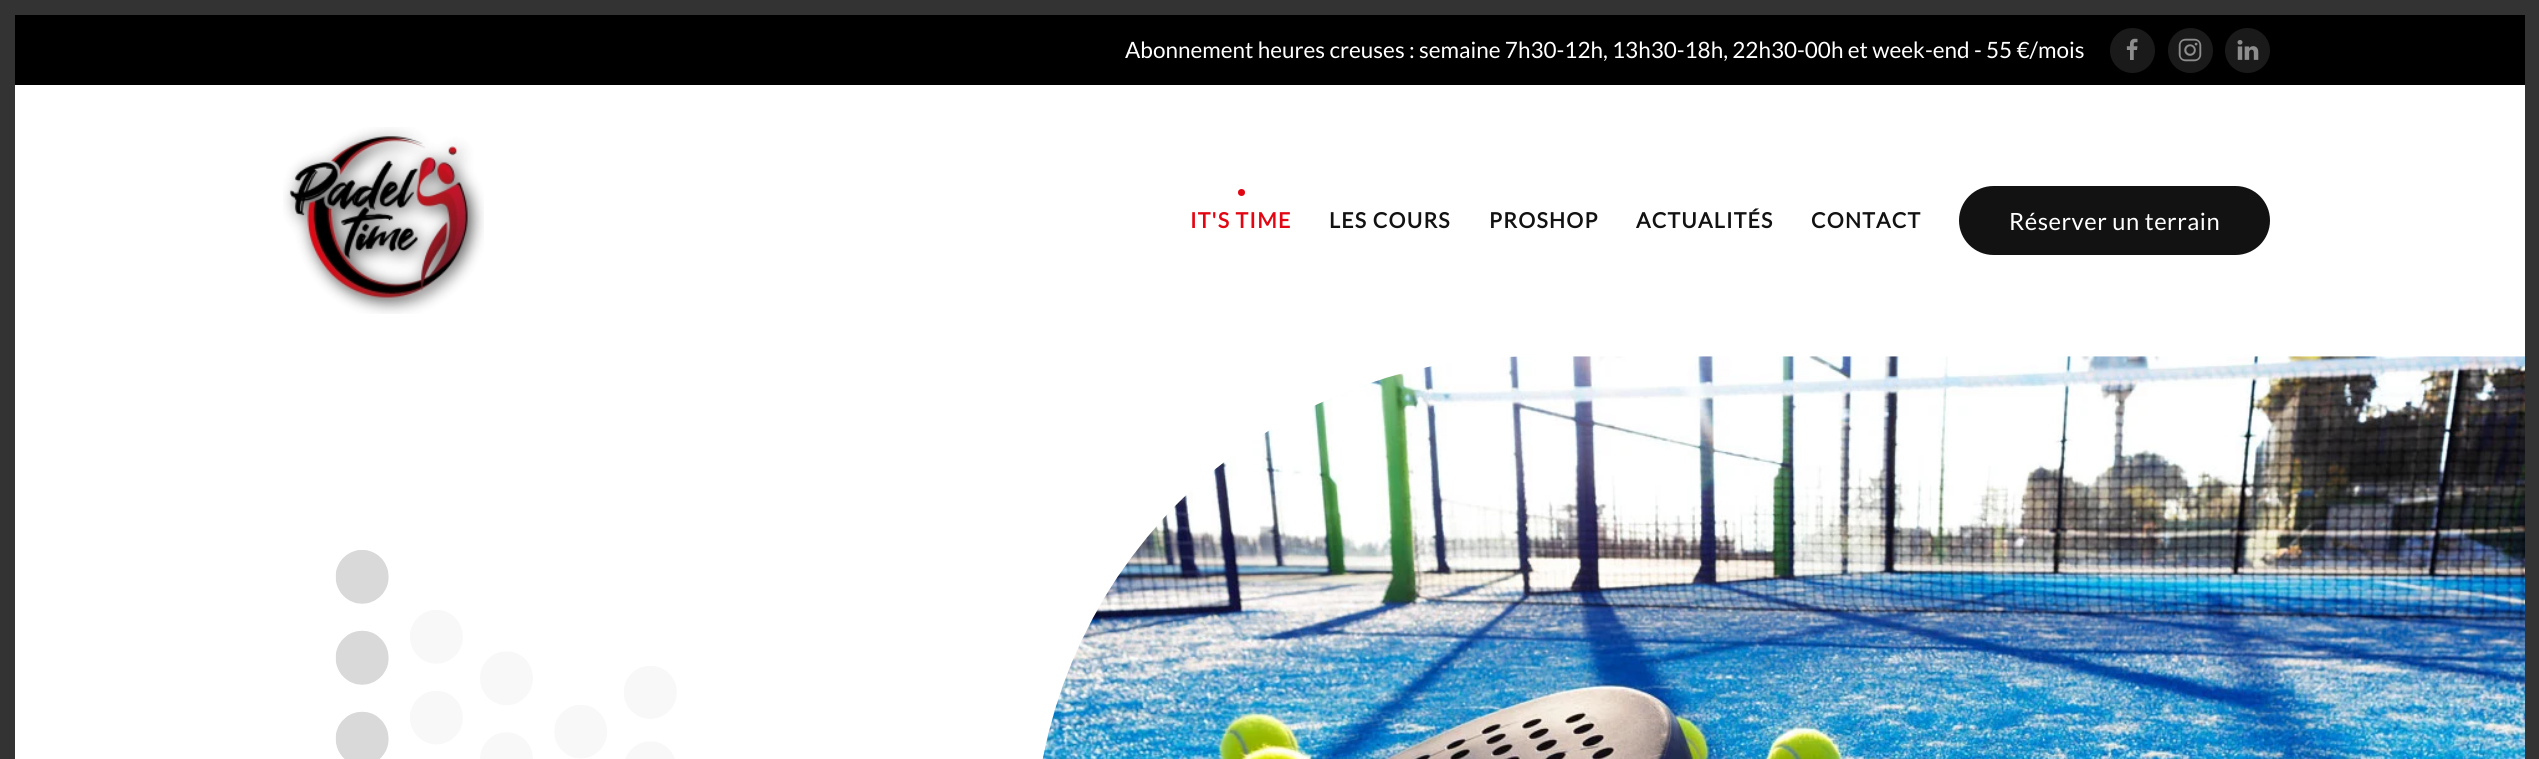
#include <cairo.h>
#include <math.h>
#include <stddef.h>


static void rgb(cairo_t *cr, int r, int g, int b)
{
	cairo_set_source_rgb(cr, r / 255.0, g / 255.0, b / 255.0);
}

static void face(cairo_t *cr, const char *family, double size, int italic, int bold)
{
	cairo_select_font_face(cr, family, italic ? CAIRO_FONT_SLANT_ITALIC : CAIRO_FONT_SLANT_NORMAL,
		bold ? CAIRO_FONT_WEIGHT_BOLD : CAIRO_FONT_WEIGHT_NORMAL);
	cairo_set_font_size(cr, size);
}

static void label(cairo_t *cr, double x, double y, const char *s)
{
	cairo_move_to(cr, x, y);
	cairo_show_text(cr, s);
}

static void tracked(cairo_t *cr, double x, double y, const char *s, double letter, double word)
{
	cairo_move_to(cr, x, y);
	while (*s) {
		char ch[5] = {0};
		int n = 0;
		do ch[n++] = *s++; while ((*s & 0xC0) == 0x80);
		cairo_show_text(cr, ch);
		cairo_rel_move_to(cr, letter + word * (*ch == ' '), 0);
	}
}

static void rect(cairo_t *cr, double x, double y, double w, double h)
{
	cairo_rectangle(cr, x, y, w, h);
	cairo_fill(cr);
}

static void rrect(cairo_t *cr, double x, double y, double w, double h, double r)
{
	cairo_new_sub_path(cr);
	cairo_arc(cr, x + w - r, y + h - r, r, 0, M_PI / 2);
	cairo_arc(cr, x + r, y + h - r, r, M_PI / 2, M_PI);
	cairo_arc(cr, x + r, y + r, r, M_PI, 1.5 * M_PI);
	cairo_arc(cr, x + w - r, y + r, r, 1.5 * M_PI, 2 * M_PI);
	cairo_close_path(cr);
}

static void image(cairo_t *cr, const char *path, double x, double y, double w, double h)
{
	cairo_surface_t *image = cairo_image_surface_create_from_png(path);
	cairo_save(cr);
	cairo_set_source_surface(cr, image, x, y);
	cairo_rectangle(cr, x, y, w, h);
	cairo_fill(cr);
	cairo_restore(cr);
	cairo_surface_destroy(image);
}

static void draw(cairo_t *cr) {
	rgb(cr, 255, 255, 255);
	cairo_paint(cr);
	cairo_rectangle(cr, 7.5, 7.5, 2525, 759);
	rgb(cr, 51, 51, 51);
	cairo_set_line_width(cr, 15);
	cairo_stroke(cr);
	rgb(cr, 0, 0, 0);
	rect(cr, 15, 15, 2510, 70);
	face(cr, "Lato", 22.5, 0, 0);
	rgb(cr, 255, 255, 255);
	label(cr, 1125, 58, "Abonnement heures creuses : semaine 7h30-12h, 13h30-18h, 22h30-00h et week-end - 55 €/mois");
	rgb(cr, 26, 26, 26);
	cairo_new_path(cr);
	cairo_arc(cr, 2132.5, 50.5, 22.5, 0, 2 * M_PI);
	cairo_fill(cr);
	image(cr, "image0.png", 2126, 38, 12, 22);
	cairo_arc(cr, 2190.5, 50.5, 22.5, 0, 2 * M_PI);
	cairo_fill(cr);
	image(cr, "image1.png", 2178, 38, 24, 24);
	cairo_arc(cr, 2247.5, 50.5, 22.5, 0, 2 * M_PI);
	cairo_fill(cr);
	image(cr, "image2.png", 2237, 40, 22, 20);
	image(cr, "image3.png", 283, 127, 201, 187);
	rgb(cr, 226, 6, 19);
	cairo_arc(cr, 1241.5, 192.5, 3.5, 0, 2 * M_PI);
	cairo_fill(cr);
	face(cr, "Lato", 21.25, 0, 1);
	tracked(cr, 1190, 228, "IT'S TIME", 1.25, 0);
	rgb(cr, 18, 18, 18);
	tracked(cr, 1329, 228, "LES COURS", 1.25, 0);
	tracked(cr, 1489, 228, "PROSHOP", 1.25, 0);
	tracked(cr, 1636, 228, "ACTUALITÉS", 1.25, 0);
	tracked(cr, 1811, 228, "CONTACT", 1.25, 0);
	rrect(cr, 1959, 186, 311, 69, 34.5);
	cairo_fill(cr);
	face(cr, "Lato", 23.75, 0, 0);
	rgb(cr, 255, 255, 255);
	tracked(cr, 2009, 230, "Réserver un terrain", 0.5, 0);
	image(cr, "image4.png", 335, 550, 342, 209);
	image(cr, "image5.png", 1042, 356, 1483, 403);
}

int main(void) {
	cairo_surface_t *surface = cairo_image_surface_create(CAIRO_FORMAT_RGB24, 2539, 759);
	cairo_t *cr = cairo_create(surface);
	cairo_font_options_t *options = cairo_font_options_create();
	cairo_font_options_set_hint_metrics(options, CAIRO_HINT_METRICS_OFF);
	cairo_font_options_set_hint_style(options, CAIRO_HINT_STYLE_NONE);
	cairo_set_font_options(cr, options);
	cairo_set_miter_limit(cr, 4);
	draw(cr);
	cairo_surface_write_to_png(surface, "render.png");
	cairo_font_options_destroy(options);
	cairo_destroy(cr);
	cairo_surface_destroy(surface);
	return 0;
}
